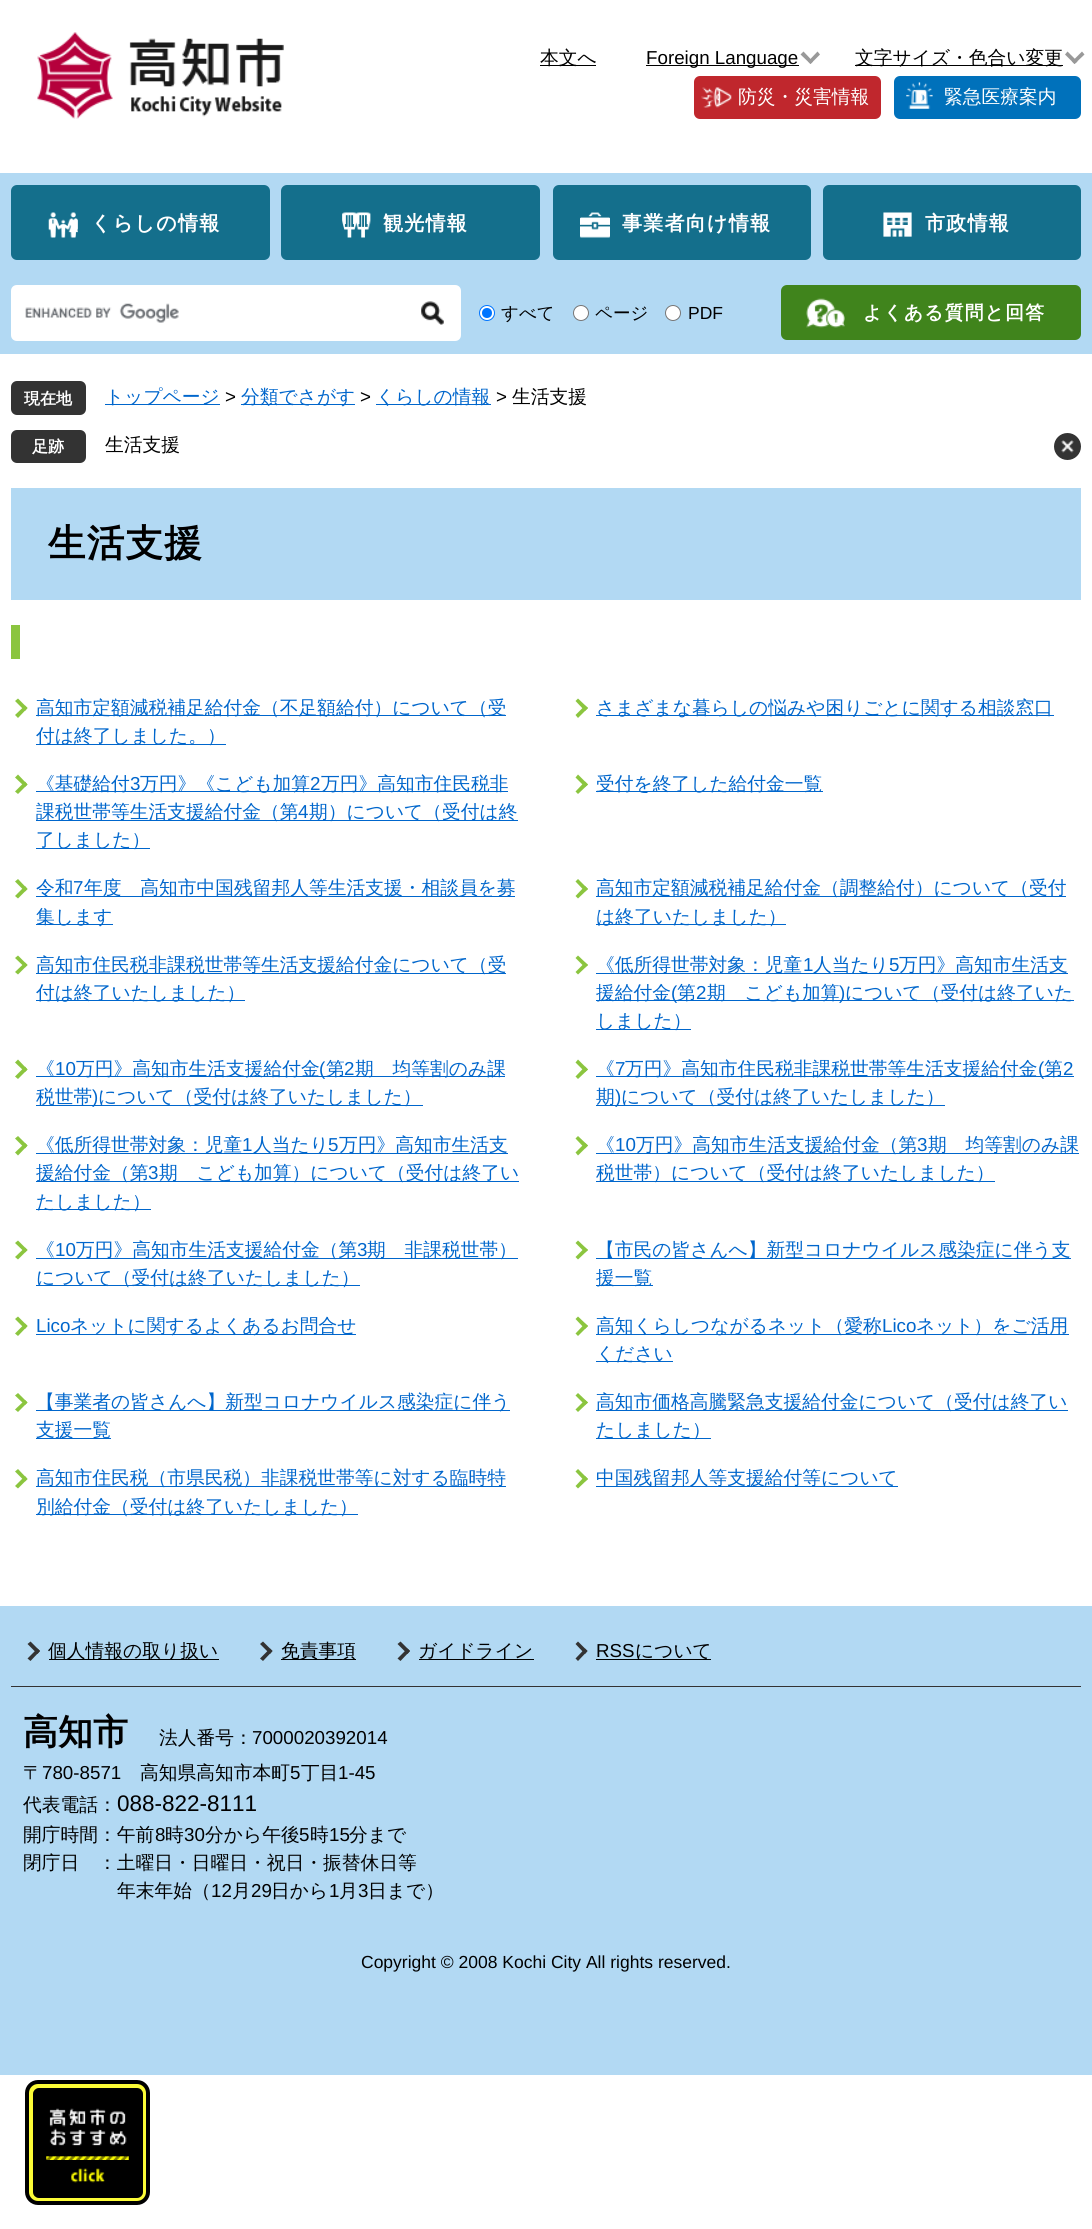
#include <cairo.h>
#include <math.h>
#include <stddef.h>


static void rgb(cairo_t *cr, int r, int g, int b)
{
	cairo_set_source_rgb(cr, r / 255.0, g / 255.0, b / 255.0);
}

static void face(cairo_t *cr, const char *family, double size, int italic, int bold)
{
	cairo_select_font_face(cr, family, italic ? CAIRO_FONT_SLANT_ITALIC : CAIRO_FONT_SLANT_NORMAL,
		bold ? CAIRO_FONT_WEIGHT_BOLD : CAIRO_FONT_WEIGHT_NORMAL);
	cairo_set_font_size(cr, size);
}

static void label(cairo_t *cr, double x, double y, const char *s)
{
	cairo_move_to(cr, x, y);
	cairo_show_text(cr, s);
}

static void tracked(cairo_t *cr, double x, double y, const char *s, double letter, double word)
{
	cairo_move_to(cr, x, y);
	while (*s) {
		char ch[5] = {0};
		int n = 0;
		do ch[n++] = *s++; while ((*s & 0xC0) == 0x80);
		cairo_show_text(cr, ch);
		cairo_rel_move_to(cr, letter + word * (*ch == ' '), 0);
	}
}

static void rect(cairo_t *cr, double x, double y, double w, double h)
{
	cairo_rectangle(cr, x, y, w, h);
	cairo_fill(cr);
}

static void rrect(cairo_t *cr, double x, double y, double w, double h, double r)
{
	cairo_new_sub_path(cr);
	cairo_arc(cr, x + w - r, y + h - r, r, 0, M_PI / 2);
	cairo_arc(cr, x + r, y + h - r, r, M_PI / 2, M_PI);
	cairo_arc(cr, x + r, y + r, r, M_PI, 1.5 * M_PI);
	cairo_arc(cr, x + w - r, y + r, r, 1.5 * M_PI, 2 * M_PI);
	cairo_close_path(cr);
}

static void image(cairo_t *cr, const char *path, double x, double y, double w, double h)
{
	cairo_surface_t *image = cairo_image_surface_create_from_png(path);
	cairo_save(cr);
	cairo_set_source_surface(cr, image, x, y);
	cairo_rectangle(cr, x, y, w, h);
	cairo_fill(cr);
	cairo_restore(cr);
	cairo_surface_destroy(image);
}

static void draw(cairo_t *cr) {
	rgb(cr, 255, 255, 255);
	cairo_paint(cr);
	image(cr, "image0.png", 37, 32, 247, 87);
	rgb(cr, 0, 0, 0);
	rect(cr, 540, 65, 56, 1);
	face(cr, "WenQuanYi Zen Hei Medium", 18.75, 0, 0);
	label(cr, 540, 64, "本文へ");
	rect(cr, 646, 65, 153, 1);
	face(cr, "Liberation Sans", 18.75, 0, 0);
	label(cr, 646, 64, "Foreign Language");
	rgb(cr, 153, 153, 153);
	cairo_new_path(cr);
	cairo_move_to(cr, 817.5, 51.5);
	cairo_line_to(cr, 820, 54.5);
	cairo_line_to(cr, 810.5, 64);
	cairo_line_to(cr, 808, 61.5);
	cairo_close_path(cr);
	cairo_fill(cr);
	cairo_new_path(cr);
	cairo_move_to(cr, 803.5, 51.5);
	cairo_line_to(cr, 813, 61.5);
	cairo_line_to(cr, 810.5, 64);
	cairo_line_to(cr, 800.5, 54.5);
	cairo_close_path(cr);
	cairo_fill(cr);
	rgb(cr, 0, 0, 0);
	rect(cr, 855, 65, 208, 1);
	face(cr, "WenQuanYi Zen Hei Medium", 18.75, 0, 0);
	label(cr, 855, 64, "文字サイズ・色合い変更");
	rgb(cr, 153, 153, 153);
	cairo_new_path(cr);
	cairo_move_to(cr, 1082, 51.5);
	cairo_line_to(cr, 1084.5, 54.5);
	cairo_line_to(cr, 1074.5, 64);
	cairo_line_to(cr, 1072, 61.5);
	cairo_close_path(cr);
	cairo_fill(cr);
	cairo_new_path(cr);
	cairo_move_to(cr, 1067.5, 51.5);
	cairo_line_to(cr, 1077.5, 61.5);
	cairo_line_to(cr, 1074.5, 64);
	cairo_line_to(cr, 1065, 54.5);
	cairo_close_path(cr);
	cairo_fill(cr);
	rgb(cr, 192, 39, 45);
	rrect(cr, 694, 76, 187, 43, 6);
	cairo_fill(cr);
	image(cr, "image1.png", 701, 87, 31, 21);
	rgb(cr, 255, 255, 255);
	label(cr, 738, 103, "防災・災害情報");
	rgb(cr, 0, 113, 187);
	rrect(cr, 894, 76, 187, 43, 6);
	cairo_fill(cr);
	image(cr, "image2.png", 906, 82, 27, 27);
	rgb(cr, 255, 255, 255);
	label(cr, 944, 103, "緊急医療案内");
	rgb(cr, 178, 217, 243);
	rect(cr, 0, 173, 1092, 181);
	rgb(cr, 20, 111, 140);
	rrect(cr, 11, 185, 259, 75, 6);
	cairo_fill(cr);
	image(cr, "image3.png", 48, 212, 30, 26);
	face(cr, "WenQuanYi Zen Hei", 20, 0, 1);
	rgb(cr, 255, 255, 255);
	tracked(cr, 91, 230, "くらしの情報", 1.25, 0);
	rgb(cr, 20, 111, 140);
	rrect(cr, 281, 185, 259, 75, 6);
	cairo_fill(cr);
	image(cr, "image4.png", 342, 212, 29, 26);
	rgb(cr, 255, 255, 255);
	tracked(cr, 383, 230, "観光情報", 1.25, 0);
	rgb(cr, 20, 111, 140);
	rrect(cr, 553, 185, 258, 75, 6);
	cairo_fill(cr);
	image(cr, "image5.png", 580, 212, 30, 26);
	rgb(cr, 255, 255, 255);
	tracked(cr, 622, 230, "事業者向け情報", 1.25, 0);
	rgb(cr, 20, 111, 140);
	rrect(cr, 823, 185, 258, 75, 6);
	cairo_fill(cr);
	image(cr, "image6.png", 883, 212, 29, 25);
	rgb(cr, 255, 255, 255);
	tracked(cr, 925, 230, "市政情報", 1.25, 0);
	cairo_new_path(cr);
	cairo_move_to(cr, 17, 285);
	cairo_line_to(cr, 405, 285);
	cairo_line_to(cr, 405, 341);
	cairo_line_to(cr, 17, 341);
	cairo_curve_to(cr, 13.5, 341, 11, 338.5, 11, 335);
	cairo_line_to(cr, 11, 291);
	cairo_curve_to(cr, 11, 287.5, 13.5, 285, 17, 285);
	cairo_close_path(cr);
	cairo_fill(cr);
	image(cr, "image7.png", 25, 303, 154, 20);
	cairo_new_path(cr);
	cairo_move_to(cr, 405, 285);
	cairo_line_to(cr, 455, 285);
	cairo_curve_to(cr, 458.5, 285, 461, 287.5, 461, 291);
	cairo_line_to(cr, 461, 335);
	cairo_curve_to(cr, 461, 338.5, 458.5, 341, 455, 341);
	cairo_line_to(cr, 405, 341);
	cairo_close_path(cr);
	cairo_fill(cr);
	image(cr, "image8.png", 421, 301, 23, 24);
	cairo_arc(cr, 487, 313, 7.5, 0, 2 * M_PI);
	cairo_fill_preserve(cr);
	rgb(cr, 0, 117, 255);
	cairo_set_line_width(cr, 1);
	cairo_stroke(cr);
	cairo_arc(cr, 487, 313, 5, 0, 2 * M_PI);
	cairo_fill(cr);
	face(cr, "WenQuanYi Zen Hei Medium", 17.5, 0, 0);
	rgb(cr, 0, 0, 0);
	label(cr, 501, 319, "すべて");
	rgb(cr, 255, 255, 255);
	cairo_new_path(cr);
	cairo_arc(cr, 581, 313, 7.5, 0, 2 * M_PI);
	cairo_fill_preserve(cr);
	rgb(cr, 118, 118, 118);
	cairo_stroke(cr);
	rgb(cr, 0, 0, 0);
	label(cr, 595, 319, "ページ");
	rgb(cr, 255, 255, 255);
	cairo_new_path(cr);
	cairo_arc(cr, 673, 313, 7.5, 0, 2 * M_PI);
	cairo_fill_preserve(cr);
	rgb(cr, 118, 118, 118);
	cairo_stroke(cr);
	face(cr, "Liberation Sans", 17.5, 0, 0);
	rgb(cr, 0, 0, 0);
	label(cr, 688, 319, "PDF");
	rgb(cr, 64, 132, 28);
	rrect(cr, 781, 285, 300, 55, 6);
	cairo_fill(cr);
	image(cr, "image9.png", 806, 298, 39, 30);
	face(cr, "WenQuanYi Zen Hei", 18.75, 0, 1);
	rgb(cr, 255, 255, 255);
	tracked(cr, 863, 319, "よくある質問と回答", 1.25, 0);
	rgb(cr, 51, 51, 51);
	rrect(cr, 11, 381, 75, 34, 6);
	cairo_fill(cr);
	face(cr, "WenQuanYi Zen Hei", 16, 0, 1);
	rgb(cr, 255, 255, 255);
	label(cr, 24, 404, "現在地");
	rgb(cr, 0, 102, 204);
	rect(cr, 105, 404, 115, 1);
	face(cr, "WenQuanYi Zen Hei Medium", 18.75, 0, 0);
	label(cr, 105, 403, "トップページ");
	face(cr, "Liberation Sans", 18.75, 0, 0);
	rgb(cr, 0, 0, 0);
	label(cr, 225, 403, ">");
	rgb(cr, 0, 102, 204);
	rect(cr, 241, 404, 114, 1);
	face(cr, "WenQuanYi Zen Hei Medium", 18.75, 0, 0);
	label(cr, 241, 403, "分類でさがす");
	face(cr, "Liberation Sans", 18.75, 0, 0);
	rgb(cr, 0, 0, 0);
	label(cr, 360, 403, ">");
	rgb(cr, 0, 102, 204);
	rect(cr, 376, 404, 115, 1);
	face(cr, "WenQuanYi Zen Hei Medium", 18.75, 0, 0);
	label(cr, 376, 403, "くらしの情報");
	face(cr, "Liberation Sans", 18.75, 0, 0);
	rgb(cr, 0, 0, 0);
	label(cr, 496, 403, ">");
	face(cr, "WenQuanYi Zen Hei Medium", 18.75, 0, 0);
	label(cr, 512, 403, "生活支援");
	rgb(cr, 51, 51, 51);
	rrect(cr, 11, 430, 75, 33, 6);
	cairo_fill(cr);
	face(cr, "WenQuanYi Zen Hei", 16, 0, 1);
	rgb(cr, 255, 255, 255);
	label(cr, 32, 452, "足跡");
	face(cr, "WenQuanYi Zen Hei Medium", 18.75, 0, 0);
	rgb(cr, 0, 0, 0);
	label(cr, 105, 451, "生活支援");
	rgb(cr, 51, 51, 51);
	cairo_new_path(cr);
	cairo_arc(cr, 1067.5, 446.5, 13.5, 0, 2 * M_PI);
	cairo_fill(cr);
	image(cr, "image10.png", 1061, 440, 13, 13);
	rgb(cr, 178, 217, 243);
	rect(cr, 11, 488, 1070, 112);
	face(cr, "WenQuanYi Zen Hei", 37.5, 0, 1);
	rgb(cr, 0, 0, 0);
	tracked(cr, 48, 556, "生活支援", 1.25, 0);
	rgb(cr, 139, 197, 63);
	rect(cr, 11, 625, 9, 34);
	cairo_new_path(cr);
	cairo_move_to(cr, 18, 698.5);
	cairo_line_to(cr, 27.5, 708);
	cairo_line_to(cr, 25, 711);
	cairo_line_to(cr, 15, 701);
	cairo_close_path(cr);
	cairo_fill(cr);
	cairo_new_path(cr);
	cairo_move_to(cr, 25, 705.5);
	cairo_line_to(cr, 27.5, 708);
	cairo_line_to(cr, 18, 718);
	cairo_line_to(cr, 15, 715);
	cairo_close_path(cr);
	cairo_fill(cr);
	rgb(cr, 0, 102, 204);
	rect(cr, 36, 715, 470, 1);
	face(cr, "WenQuanYi Zen Hei Medium", 18.75, 0, 0);
	label(cr, 36, 714, "高知市定額減税補足給付金（不足額給付）について（受");
	rect(cr, 36, 744, 190, 1);
	label(cr, 36, 742, "付は終了しました。）");
	rgb(cr, 139, 197, 63);
	cairo_new_path(cr);
	cairo_move_to(cr, 578, 698.5);
	cairo_line_to(cr, 588, 708);
	cairo_line_to(cr, 585, 711);
	cairo_line_to(cr, 575.5, 701);
	cairo_close_path(cr);
	cairo_fill(cr);
	cairo_new_path(cr);
	cairo_move_to(cr, 585, 705.5);
	cairo_line_to(cr, 588, 708);
	cairo_line_to(cr, 578, 718);
	cairo_line_to(cr, 575.5, 715);
	cairo_close_path(cr);
	cairo_fill(cr);
	rgb(cr, 0, 102, 204);
	rect(cr, 596, 715, 458, 1);
	label(cr, 596, 714, "さまざまな暮らしの悩みや困りごとに関する相談窓口");
	rgb(cr, 139, 197, 63);
	cairo_new_path(cr);
	cairo_move_to(cr, 18, 774.5);
	cairo_line_to(cr, 27.5, 784.5);
	cairo_line_to(cr, 25, 787);
	cairo_line_to(cr, 15, 777.5);
	cairo_close_path(cr);
	cairo_fill(cr);
	cairo_new_path(cr);
	cairo_move_to(cr, 25, 781.5);
	cairo_line_to(cr, 27.5, 784.5);
	cairo_line_to(cr, 18, 794);
	cairo_line_to(cr, 15, 791.5);
	cairo_close_path(cr);
	cairo_fill(cr);
	rgb(cr, 0, 102, 204);
	rect(cr, 36, 791, 472, 1);
	label(cr, 36, 790, "《基礎給付");
	face(cr, "Liberation Sans", 18.75, 0, 0);
	label(cr, 130, 790, "3");
	face(cr, "WenQuanYi Zen Hei Medium", 18.75, 0, 0);
	label(cr, 140, 790, "万円》《こども加算");
	face(cr, "Liberation Sans", 18.75, 0, 0);
	label(cr, 310, 790, "2");
	face(cr, "WenQuanYi Zen Hei Medium", 18.75, 0, 0);
	label(cr, 321, 790, "万円》高知市住民税非");
	rect(cr, 36, 820, 482, 1);
	label(cr, 36, 818, "課税世帯等生活支援給付金（第");
	face(cr, "Liberation Sans", 18.75, 0, 0);
	label(cr, 298, 818, "4");
	face(cr, "WenQuanYi Zen Hei Medium", 18.75, 0, 0);
	label(cr, 309, 818, "期）について（受付は終");
	rect(cr, 36, 848, 114, 1);
	label(cr, 36, 846, "了しました）");
	rgb(cr, 139, 197, 63);
	cairo_new_path(cr);
	cairo_move_to(cr, 578, 774.5);
	cairo_line_to(cr, 588, 784.5);
	cairo_line_to(cr, 585, 787);
	cairo_line_to(cr, 575.5, 777.5);
	cairo_close_path(cr);
	cairo_fill(cr);
	cairo_new_path(cr);
	cairo_move_to(cr, 585, 781.5);
	cairo_line_to(cr, 588, 784.5);
	cairo_line_to(cr, 578, 794);
	cairo_line_to(cr, 575.5, 791.5);
	cairo_close_path(cr);
	cairo_fill(cr);
	rgb(cr, 0, 102, 204);
	rect(cr, 596, 791, 227, 1);
	label(cr, 596, 790, "受付を終了した給付金一覧");
	rgb(cr, 139, 197, 63);
	cairo_new_path(cr);
	cairo_move_to(cr, 18, 879);
	cairo_line_to(cr, 27.5, 889);
	cairo_line_to(cr, 25, 891.5);
	cairo_line_to(cr, 15, 881.5);
	cairo_close_path(cr);
	cairo_fill(cr);
	cairo_new_path(cr);
	cairo_move_to(cr, 25, 886);
	cairo_line_to(cr, 27.5, 889);
	cairo_line_to(cr, 18, 898.5);
	cairo_line_to(cr, 15, 896);
	cairo_close_path(cr);
	cairo_fill(cr);
	rgb(cr, 0, 102, 204);
	rect(cr, 36, 896, 479, 1);
	label(cr, 36, 894, "令和");
	face(cr, "Liberation Sans", 18.75, 0, 0);
	label(cr, 73, 894, "7");
	face(cr, "WenQuanYi Zen Hei Medium", 18.75, 0, 0);
	label(cr, 84, 894, "年度　高知市中国残留邦人等生活支援・相談員を募");
	rect(cr, 36, 924, 77, 1);
	label(cr, 36, 923, "集します");
	rgb(cr, 139, 197, 63);
	cairo_new_path(cr);
	cairo_move_to(cr, 578, 879);
	cairo_line_to(cr, 588, 889);
	cairo_line_to(cr, 585, 891.5);
	cairo_line_to(cr, 575.5, 881.5);
	cairo_close_path(cr);
	cairo_fill(cr);
	cairo_new_path(cr);
	cairo_move_to(cr, 585, 886);
	cairo_line_to(cr, 588, 889);
	cairo_line_to(cr, 578, 898.5);
	cairo_line_to(cr, 575.5, 896);
	cairo_close_path(cr);
	cairo_fill(cr);
	rgb(cr, 0, 102, 204);
	rect(cr, 596, 896, 470, 1);
	label(cr, 596, 894, "高知市定額減税補足給付金（調整給付）について（受付");
	rect(cr, 596, 924, 190, 1);
	label(cr, 596, 923, "は終了いたしました）");
	rgb(cr, 139, 197, 63);
	cairo_new_path(cr);
	cairo_move_to(cr, 18, 955.5);
	cairo_line_to(cr, 27.5, 965);
	cairo_line_to(cr, 25, 967.5);
	cairo_line_to(cr, 15, 958);
	cairo_close_path(cr);
	cairo_fill(cr);
	cairo_new_path(cr);
	cairo_move_to(cr, 25, 962.5);
	cairo_line_to(cr, 27.5, 965);
	cairo_line_to(cr, 18, 974.5);
	cairo_line_to(cr, 15, 972);
	cairo_close_path(cr);
	cairo_fill(cr);
	rgb(cr, 0, 102, 204);
	rect(cr, 36, 973, 470, 1);
	label(cr, 36, 971, "高知市住民税非課税世帯等生活支援給付金について（受");
	rect(cr, 36, 1000, 209, 1);
	label(cr, 36, 999, "付は終了いたしました）");
	rgb(cr, 139, 197, 63);
	cairo_new_path(cr);
	cairo_move_to(cr, 578, 955.5);
	cairo_line_to(cr, 588, 965);
	cairo_line_to(cr, 585, 967.5);
	cairo_line_to(cr, 575.5, 958);
	cairo_close_path(cr);
	cairo_fill(cr);
	cairo_new_path(cr);
	cairo_move_to(cr, 585, 962.5);
	cairo_line_to(cr, 588, 965);
	cairo_line_to(cr, 578, 974.5);
	cairo_line_to(cr, 575.5, 972);
	cairo_close_path(cr);
	cairo_fill(cr);
	rgb(cr, 0, 102, 204);
	rect(cr, 596, 973, 472, 1);
	label(cr, 596, 971, "《低所得世帯対象：児童");
	face(cr, "Liberation Sans", 18.75, 0, 0);
	label(cr, 803, 971, "1");
	face(cr, "WenQuanYi Zen Hei Medium", 18.75, 0, 0);
	label(cr, 813, 971, "人当たり");
	face(cr, "Liberation Sans", 18.75, 0, 0);
	label(cr, 889, 971, "5");
	face(cr, "WenQuanYi Zen Hei Medium", 18.75, 0, 0);
	label(cr, 899, 971, "万円》高知市生活支");
	rect(cr, 596, 1000, 478, 1);
	label(cr, 596, 999, "援給付金");
	face(cr, "Liberation Sans", 18.75, 0, 0);
	label(cr, 671, 999, "(");
	face(cr, "WenQuanYi Zen Hei Medium", 18.75, 0, 0);
	label(cr, 677, 999, "第");
	face(cr, "Liberation Sans", 18.75, 0, 0);
	label(cr, 696, 999, "2");
	face(cr, "WenQuanYi Zen Hei Medium", 18.75, 0, 0);
	label(cr, 707, 999, "期　こども加算");
	face(cr, "Liberation Sans", 18.75, 0, 0);
	label(cr, 839, 999, ")");
	face(cr, "WenQuanYi Zen Hei Medium", 18.75, 0, 0);
	label(cr, 845, 999, "について（受付は終了いた");
	rect(cr, 596, 1029, 95, 1);
	label(cr, 596, 1027, "しました）");
	rgb(cr, 139, 197, 63);
	cairo_new_path(cr);
	cairo_move_to(cr, 18, 1059.5);
	cairo_line_to(cr, 27.5, 1069.5);
	cairo_line_to(cr, 25, 1072);
	cairo_line_to(cr, 15, 1062.5);
	cairo_close_path(cr);
	cairo_fill(cr);
	cairo_new_path(cr);
	cairo_move_to(cr, 25, 1066.5);
	cairo_line_to(cr, 27.5, 1069.5);
	cairo_line_to(cr, 18, 1079);
	cairo_line_to(cr, 15, 1076.5);
	cairo_close_path(cr);
	cairo_fill(cr);
	rgb(cr, 0, 102, 204);
	rect(cr, 36, 1076, 469, 1);
	label(cr, 36, 1075, "《");
	face(cr, "Liberation Sans", 18.75, 0, 0);
	label(cr, 55, 1075, "10");
	face(cr, "WenQuanYi Zen Hei Medium", 18.75, 0, 0);
	label(cr, 76, 1075, "万円》高知市生活支援給付金");
	face(cr, "Liberation Sans", 18.75, 0, 0);
	label(cr, 319, 1075, "(");
	face(cr, "WenQuanYi Zen Hei Medium", 18.75, 0, 0);
	label(cr, 326, 1075, "第");
	face(cr, "Liberation Sans", 18.75, 0, 0);
	label(cr, 344, 1075, "2");
	face(cr, "WenQuanYi Zen Hei Medium", 18.75, 0, 0);
	label(cr, 355, 1075, "期　均等割のみ課");
	rect(cr, 36, 1105, 387, 1);
	label(cr, 36, 1103, "税世帯");
	face(cr, "Liberation Sans", 18.75, 0, 0);
	label(cr, 92, 1103, ")");
	face(cr, "WenQuanYi Zen Hei Medium", 18.75, 0, 0);
	label(cr, 98, 1103, "について（受付は終了いたしました）");
	rgb(cr, 139, 197, 63);
	cairo_new_path(cr);
	cairo_move_to(cr, 578, 1059.5);
	cairo_line_to(cr, 588, 1069.5);
	cairo_line_to(cr, 585, 1072);
	cairo_line_to(cr, 575.5, 1062.5);
	cairo_close_path(cr);
	cairo_fill(cr);
	cairo_new_path(cr);
	cairo_move_to(cr, 585, 1066.5);
	cairo_line_to(cr, 588, 1069.5);
	cairo_line_to(cr, 578, 1079);
	cairo_line_to(cr, 575.5, 1076.5);
	cairo_close_path(cr);
	cairo_fill(cr);
	rgb(cr, 0, 102, 204);
	rect(cr, 596, 1076, 478, 1);
	label(cr, 596, 1075, "《");
	face(cr, "Liberation Sans", 18.75, 0, 0);
	label(cr, 615, 1075, "7");
	face(cr, "WenQuanYi Zen Hei Medium", 18.75, 0, 0);
	label(cr, 625, 1075, "万円》高知市住民税非課税世帯等生活支援給付金");
	face(cr, "Liberation Sans", 18.75, 0, 0);
	label(cr, 1038, 1075, "(");
	face(cr, "WenQuanYi Zen Hei Medium", 18.75, 0, 0);
	label(cr, 1044, 1075, "第");
	face(cr, "Liberation Sans", 18.75, 0, 0);
	label(cr, 1063, 1075, "2");
	rect(cr, 596, 1105, 349, 1);
	face(cr, "WenQuanYi Zen Hei Medium", 18.75, 0, 0);
	label(cr, 596, 1103, "期");
	face(cr, "Liberation Sans", 18.75, 0, 0);
	label(cr, 615, 1103, ")");
	face(cr, "WenQuanYi Zen Hei Medium", 18.75, 0, 0);
	label(cr, 621, 1103, "について（受付は終了いたしました）");
	rgb(cr, 139, 197, 63);
	cairo_new_path(cr);
	cairo_move_to(cr, 18, 1136);
	cairo_line_to(cr, 27.5, 1145.5);
	cairo_line_to(cr, 25, 1148.5);
	cairo_line_to(cr, 15, 1138.5);
	cairo_close_path(cr);
	cairo_fill(cr);
	cairo_new_path(cr);
	cairo_move_to(cr, 25, 1143);
	cairo_line_to(cr, 27.5, 1145.5);
	cairo_line_to(cr, 18, 1155.5);
	cairo_line_to(cr, 15, 1152.5);
	cairo_close_path(cr);
	cairo_fill(cr);
	rgb(cr, 0, 102, 204);
	rect(cr, 36, 1153, 472, 1);
	label(cr, 36, 1151, "《低所得世帯対象：児童");
	face(cr, "Liberation Sans", 18.75, 0, 0);
	label(cr, 242, 1151, "1");
	face(cr, "WenQuanYi Zen Hei Medium", 18.75, 0, 0);
	label(cr, 253, 1151, "人当たり");
	face(cr, "Liberation Sans", 18.75, 0, 0);
	label(cr, 328, 1151, "5");
	face(cr, "WenQuanYi Zen Hei Medium", 18.75, 0, 0);
	label(cr, 339, 1151, "万円》高知市生活支");
	rect(cr, 36, 1181, 483, 1);
	label(cr, 36, 1179, "援給付金（第");
	face(cr, "Liberation Sans", 18.75, 0, 0);
	label(cr, 148, 1179, "3");
	face(cr, "WenQuanYi Zen Hei Medium", 18.75, 0, 0);
	label(cr, 159, 1179, "期　こども加算）について（受付は終了い");
	rect(cr, 36, 1209, 115, 1);
	label(cr, 36, 1208, "たしました）");
	rgb(cr, 139, 197, 63);
	cairo_new_path(cr);
	cairo_move_to(cr, 578, 1136);
	cairo_line_to(cr, 588, 1145.5);
	cairo_line_to(cr, 585, 1148.5);
	cairo_line_to(cr, 575.5, 1138.5);
	cairo_close_path(cr);
	cairo_fill(cr);
	cairo_new_path(cr);
	cairo_move_to(cr, 585, 1143);
	cairo_line_to(cr, 588, 1145.5);
	cairo_line_to(cr, 578, 1155.5);
	cairo_line_to(cr, 575.5, 1152.5);
	cairo_close_path(cr);
	cairo_fill(cr);
	rgb(cr, 0, 102, 204);
	label(cr, 596, 1151, "《");
	face(cr, "Liberation Sans", 18.75, 0, 0);
	label(cr, 615, 1151, "10");
	rect(cr, 596, 1153, 483, 1);
	face(cr, "WenQuanYi Zen Hei Medium", 18.75, 0, 0);
	label(cr, 636, 1151, "万円》高知市生活支援給付金（第");
	face(cr, "Liberation Sans", 18.75, 0, 0);
	label(cr, 917, 1151, "3");
	face(cr, "WenQuanYi Zen Hei Medium", 18.75, 0, 0);
	label(cr, 928, 1151, "期　均等割のみ課");
	rect(cr, 596, 1181, 399, 1);
	label(cr, 596, 1179, "税世帯）について（受付は終了いたしました）");
	rgb(cr, 139, 197, 63);
	cairo_new_path(cr);
	cairo_move_to(cr, 18, 1240.5);
	cairo_line_to(cr, 27.5, 1250);
	cairo_line_to(cr, 25, 1252.5);
	cairo_line_to(cr, 15, 1243);
	cairo_close_path(cr);
	cairo_fill(cr);
	cairo_new_path(cr);
	cairo_move_to(cr, 25, 1247.5);
	cairo_line_to(cr, 27.5, 1250);
	cairo_line_to(cr, 18, 1259.5);
	cairo_line_to(cr, 15, 1257);
	cairo_close_path(cr);
	cairo_fill(cr);
	rgb(cr, 0, 102, 204);
	label(cr, 36, 1256, "《");
	face(cr, "Liberation Sans", 18.75, 0, 0);
	label(cr, 55, 1256, "10");
	rect(cr, 36, 1258, 482, 1);
	face(cr, "WenQuanYi Zen Hei Medium", 18.75, 0, 0);
	label(cr, 76, 1256, "万円》高知市生活支援給付金（第");
	face(cr, "Liberation Sans", 18.75, 0, 0);
	label(cr, 357, 1256, "3");
	face(cr, "WenQuanYi Zen Hei Medium", 18.75, 0, 0);
	label(cr, 367, 1256, "期　非課税世帯）");
	rect(cr, 36, 1285, 324, 1);
	label(cr, 36, 1284, "について（受付は終了いたしました）");
	rgb(cr, 139, 197, 63);
	cairo_new_path(cr);
	cairo_move_to(cr, 578, 1240.5);
	cairo_line_to(cr, 588, 1250);
	cairo_line_to(cr, 585, 1252.5);
	cairo_line_to(cr, 575.5, 1243);
	cairo_close_path(cr);
	cairo_fill(cr);
	cairo_new_path(cr);
	cairo_move_to(cr, 585, 1247.5);
	cairo_line_to(cr, 588, 1250);
	cairo_line_to(cr, 578, 1259.5);
	cairo_line_to(cr, 575.5, 1257);
	cairo_close_path(cr);
	cairo_fill(cr);
	rgb(cr, 0, 102, 204);
	rect(cr, 596, 1258, 475, 1);
	label(cr, 596, 1256, "【市民の皆さんへ】新型コロナウイルス感染症に伴う支");
	rect(cr, 596, 1285, 57, 1);
	label(cr, 596, 1284, "援一覧");
	rgb(cr, 139, 197, 63);
	cairo_new_path(cr);
	cairo_move_to(cr, 18, 1316.5);
	cairo_line_to(cr, 27.5, 1326);
	cairo_line_to(cr, 25, 1329);
	cairo_line_to(cr, 15, 1319);
	cairo_close_path(cr);
	cairo_fill(cr);
	cairo_new_path(cr);
	cairo_move_to(cr, 25, 1323.5);
	cairo_line_to(cr, 27.5, 1326);
	cairo_line_to(cr, 18, 1336);
	cairo_line_to(cr, 15, 1333.5);
	cairo_close_path(cr);
	cairo_fill(cr);
	face(cr, "Liberation Sans", 18.75, 0, 0);
	rgb(cr, 0, 102, 204);
	label(cr, 36, 1332, "Lico");
	rect(cr, 36, 1334, 320, 1);
	face(cr, "WenQuanYi Zen Hei Medium", 18.75, 0, 0);
	label(cr, 70, 1332, "ネットに関するよくあるお問合せ");
	rgb(cr, 139, 197, 63);
	cairo_new_path(cr);
	cairo_move_to(cr, 578, 1316.5);
	cairo_line_to(cr, 588, 1326);
	cairo_line_to(cr, 585, 1329);
	cairo_line_to(cr, 575.5, 1319);
	cairo_close_path(cr);
	cairo_fill(cr);
	cairo_new_path(cr);
	cairo_move_to(cr, 585, 1323.5);
	cairo_line_to(cr, 588, 1326);
	cairo_line_to(cr, 578, 1336);
	cairo_line_to(cr, 575.5, 1333.5);
	cairo_close_path(cr);
	cairo_fill(cr);
	rgb(cr, 0, 102, 204);
	rect(cr, 596, 1334, 473, 1);
	label(cr, 596, 1332, "高知くらしつながるネット（愛称");
	face(cr, "Liberation Sans", 18.75, 0, 0);
	label(cr, 882, 1332, "Lico");
	face(cr, "WenQuanYi Zen Hei Medium", 18.75, 0, 0);
	label(cr, 916, 1332, "ネット）をご活用");
	rect(cr, 596, 1361, 77, 1);
	label(cr, 596, 1360, "ください");
	rgb(cr, 139, 197, 63);
	cairo_new_path(cr);
	cairo_move_to(cr, 18, 1393);
	cairo_line_to(cr, 27.5, 1402.5);
	cairo_line_to(cr, 25, 1405);
	cairo_line_to(cr, 15, 1395.5);
	cairo_close_path(cr);
	cairo_fill(cr);
	cairo_new_path(cr);
	cairo_move_to(cr, 25, 1400);
	cairo_line_to(cr, 27.5, 1402.5);
	cairo_line_to(cr, 18, 1412);
	cairo_line_to(cr, 15, 1409.5);
	cairo_close_path(cr);
	cairo_fill(cr);
	rgb(cr, 0, 102, 204);
	rect(cr, 36, 1410, 474, 1);
	label(cr, 36, 1408, "【事業者の皆さんへ】新型コロナウイルス感染症に伴う");
	rect(cr, 36, 1438, 75, 1);
	label(cr, 36, 1436, "支援一覧");
	rgb(cr, 139, 197, 63);
	cairo_new_path(cr);
	cairo_move_to(cr, 578, 1393);
	cairo_line_to(cr, 588, 1402.5);
	cairo_line_to(cr, 585, 1405);
	cairo_line_to(cr, 575.5, 1395.5);
	cairo_close_path(cr);
	cairo_fill(cr);
	cairo_new_path(cr);
	cairo_move_to(cr, 585, 1400);
	cairo_line_to(cr, 588, 1402.5);
	cairo_line_to(cr, 578, 1412);
	cairo_line_to(cr, 575.5, 1409.5);
	cairo_close_path(cr);
	cairo_fill(cr);
	rgb(cr, 0, 102, 204);
	rect(cr, 596, 1410, 472, 1);
	label(cr, 596, 1408, "高知市価格高騰緊急支援給付金について（受付は終了い");
	rect(cr, 596, 1438, 115, 1);
	label(cr, 596, 1436, "たしました）");
	rgb(cr, 139, 197, 63);
	cairo_new_path(cr);
	cairo_move_to(cr, 18, 1469);
	cairo_line_to(cr, 27.5, 1479);
	cairo_line_to(cr, 25, 1481.5);
	cairo_line_to(cr, 15, 1471.5);
	cairo_close_path(cr);
	cairo_fill(cr);
	cairo_new_path(cr);
	cairo_move_to(cr, 25, 1476);
	cairo_line_to(cr, 27.5, 1479);
	cairo_line_to(cr, 18, 1488.5);
	cairo_line_to(cr, 15, 1486);
	cairo_close_path(cr);
	cairo_fill(cr);
	rgb(cr, 0, 102, 204);
	rect(cr, 36, 1486, 470, 1);
	label(cr, 36, 1484, "高知市住民税（市県民税）非課税世帯等に対する臨時特");
	rect(cr, 36, 1514, 322, 1);
	label(cr, 36, 1513, "別給付金（受付は終了いたしました）");
	rgb(cr, 139, 197, 63);
	cairo_new_path(cr);
	cairo_move_to(cr, 578, 1469);
	cairo_line_to(cr, 588, 1479);
	cairo_line_to(cr, 585, 1481.5);
	cairo_line_to(cr, 575.5, 1471.5);
	cairo_close_path(cr);
	cairo_fill(cr);
	cairo_new_path(cr);
	cairo_move_to(cr, 585, 1476);
	cairo_line_to(cr, 588, 1479);
	cairo_line_to(cr, 578, 1488.5);
	cairo_line_to(cr, 575.5, 1486);
	cairo_close_path(cr);
	cairo_fill(cr);
	rgb(cr, 0, 102, 204);
	rect(cr, 596, 1486, 302, 1);
	label(cr, 596, 1484, "中国残留邦人等支援給付等について");
	rgb(cr, 178, 217, 243);
	rect(cr, 0, 1606, 1092, 469);
	rgb(cr, 51, 51, 51);
	rect(cr, 11, 1686, 1070, 1);
	cairo_new_path(cr);
	cairo_move_to(cr, 30.5, 1641.5);
	cairo_line_to(cr, 40, 1651);
	cairo_line_to(cr, 37.5, 1654);
	cairo_line_to(cr, 27.5, 1644);
	cairo_close_path(cr);
	cairo_fill(cr);
	cairo_new_path(cr);
	cairo_move_to(cr, 37.5, 1648.5);
	cairo_line_to(cr, 40, 1651);
	cairo_line_to(cr, 30.5, 1661);
	cairo_line_to(cr, 27.5, 1658.5);
	cairo_close_path(cr);
	cairo_fill(cr);
	rgb(cr, 0, 0, 0);
	rect(cr, 49, 1659, 170, 1);
	label(cr, 48, 1657, "個人情報の取り扱い");
	rgb(cr, 51, 51, 51);
	cairo_new_path(cr);
	cairo_move_to(cr, 263, 1641.5);
	cairo_line_to(cr, 272.5, 1651);
	cairo_line_to(cr, 270, 1654);
	cairo_line_to(cr, 260, 1644);
	cairo_close_path(cr);
	cairo_fill(cr);
	cairo_new_path(cr);
	cairo_move_to(cr, 270, 1648.5);
	cairo_line_to(cr, 272.5, 1651);
	cairo_line_to(cr, 263, 1661);
	cairo_line_to(cr, 260, 1658.5);
	cairo_close_path(cr);
	cairo_fill(cr);
	rgb(cr, 0, 0, 0);
	rect(cr, 281, 1659, 75, 1);
	label(cr, 281, 1657, "免責事項");
	rgb(cr, 51, 51, 51);
	cairo_new_path(cr);
	cairo_move_to(cr, 400.5, 1641.5);
	cairo_line_to(cr, 410, 1651);
	cairo_line_to(cr, 407.5, 1654);
	cairo_line_to(cr, 397.5, 1644);
	cairo_close_path(cr);
	cairo_fill(cr);
	cairo_new_path(cr);
	cairo_move_to(cr, 407.5, 1648.5);
	cairo_line_to(cr, 410, 1651);
	cairo_line_to(cr, 400.5, 1661);
	cairo_line_to(cr, 397.5, 1658.5);
	cairo_close_path(cr);
	cairo_fill(cr);
	rgb(cr, 0, 0, 0);
	rect(cr, 419, 1659, 115, 1);
	label(cr, 418, 1657, "ガイドライン");
	rgb(cr, 51, 51, 51);
	cairo_new_path(cr);
	cairo_move_to(cr, 578, 1641.5);
	cairo_line_to(cr, 587.5, 1651);
	cairo_line_to(cr, 585, 1654);
	cairo_line_to(cr, 575.5, 1644);
	cairo_close_path(cr);
	cairo_fill(cr);
	cairo_new_path(cr);
	cairo_move_to(cr, 585, 1648.5);
	cairo_line_to(cr, 587.5, 1651);
	cairo_line_to(cr, 578, 1661);
	cairo_line_to(cr, 575.5, 1658.5);
	cairo_close_path(cr);
	cairo_fill(cr);
	face(cr, "Liberation Sans", 18.75, 0, 0);
	rgb(cr, 0, 0, 0);
	label(cr, 596, 1657, "RSS");
	rect(cr, 596, 1659, 115, 1);
	face(cr, "WenQuanYi Zen Hei Medium", 18.75, 0, 0);
	label(cr, 635, 1657, "について");
	face(cr, "WenQuanYi Zen Hei", 35, 0, 1);
	label(cr, 23, 1744, "高知市");
	face(cr, "WenQuanYi Zen Hei Medium", 18.75, 0, 0);
	label(cr, 159, 1744, "法人番号：");
	face(cr, "Liberation Sans", 18.75, 0, 0);
	label(cr, 252, 1744, "7000020392014");
	face(cr, "WenQuanYi Zen Hei Medium", 18.75, 0, 0);
	label(cr, 23, 1779, "〒");
	face(cr, "Liberation Sans", 18.75, 0, 0);
	label(cr, 42, 1779, "780-8571");
	face(cr, "WenQuanYi Zen Hei Medium", 18.75, 0, 0);
	label(cr, 140, 1779, "高知県高知市本町");
	face(cr, "Liberation Sans", 18.75, 0, 0);
	label(cr, 290, 1779, "5");
	face(cr, "WenQuanYi Zen Hei Medium", 18.75, 0, 0);
	label(cr, 301, 1779, "丁目");
	face(cr, "Liberation Sans", 18.75, 0, 0);
	label(cr, 338, 1779, "1-45");
	face(cr, "WenQuanYi Zen Hei Medium", 18.75, 0, 0);
	label(cr, 23, 1811, "代表電話：");
	face(cr, "Liberation Sans", 22.5, 0, 0);
	label(cr, 117, 1811, "088-822-8111");
	face(cr, "WenQuanYi Zen Hei Medium", 18.75, 0, 0);
	label(cr, 23, 1841, "開庁時間：午前");
	face(cr, "Liberation Sans", 18.75, 0, 0);
	label(cr, 155, 1841, "8");
	face(cr, "WenQuanYi Zen Hei Medium", 18.75, 0, 0);
	label(cr, 165, 1841, "時");
	face(cr, "Liberation Sans", 18.75, 0, 0);
	label(cr, 184, 1841, "30");
	face(cr, "WenQuanYi Zen Hei Medium", 18.75, 0, 0);
	label(cr, 205, 1841, "分から午後");
	face(cr, "Liberation Sans", 18.75, 0, 0);
	label(cr, 299, 1841, "5");
	face(cr, "WenQuanYi Zen Hei Medium", 18.75, 0, 0);
	label(cr, 310, 1841, "時");
	face(cr, "Liberation Sans", 18.75, 0, 0);
	label(cr, 329, 1841, "15");
	face(cr, "WenQuanYi Zen Hei Medium", 18.75, 0, 0);
	label(cr, 349, 1841, "分まで");
	label(cr, 23, 1869, "閉庁日　：土曜日・日曜日・祝日・振替休日等");
	label(cr, 117, 1897, "年末年始（");
	face(cr, "Liberation Sans", 18.75, 0, 0);
	label(cr, 211, 1897, "12");
	face(cr, "WenQuanYi Zen Hei Medium", 18.75, 0, 0);
	label(cr, 232, 1897, "月");
	face(cr, "Liberation Sans", 18.75, 0, 0);
	label(cr, 251, 1897, "29");
	face(cr, "WenQuanYi Zen Hei Medium", 18.75, 0, 0);
	label(cr, 271, 1897, "日から");
	face(cr, "Liberation Sans", 18.75, 0, 0);
	label(cr, 329, 1897, "1");
	face(cr, "WenQuanYi Zen Hei Medium", 18.75, 0, 0);
	label(cr, 339, 1897, "月");
	face(cr, "Liberation Sans", 18.75, 0, 0);
	label(cr, 358, 1897, "3");
	face(cr, "WenQuanYi Zen Hei Medium", 18.75, 0, 0);
	label(cr, 368, 1897, "日まで）");
	face(cr, "Liberation Sans", 17.5, 0, 0);
	label(cr, 361, 1968, "Copyright © 2008 Kochi City All rights reserved.");
	rgb(cr, 252, 252, 54);
	rrect(cr, 27, 2082, 121, 121, 11);
	cairo_fill_preserve(cr);
	rgb(cr, 0, 0, 0);
	cairo_set_line_width(cr, 4);
	cairo_stroke(cr);
	rrect(cr, 35, 2090, 106, 106, 4);
	cairo_fill_preserve(cr);
	cairo_stroke(cr);
	image(cr, "image11.png", 71, 2168, 34, 15);
	image(cr, "image12.png", 46, 2108, 83, 52);
}

int main(void) {
	cairo_surface_t *surface = cairo_image_surface_create(CAIRO_FORMAT_RGB24, 1092, 2229);
	cairo_t *cr = cairo_create(surface);
	cairo_font_options_t *options = cairo_font_options_create();
	cairo_font_options_set_hint_metrics(options, CAIRO_HINT_METRICS_OFF);
	cairo_font_options_set_hint_style(options, CAIRO_HINT_STYLE_NONE);
	cairo_set_font_options(cr, options);
	cairo_set_miter_limit(cr, 4);
	draw(cr);
	cairo_surface_write_to_png(surface, "render.png");
	cairo_font_options_destroy(options);
	cairo_destroy(cr);
	cairo_surface_destroy(surface);
	return 0;
}
